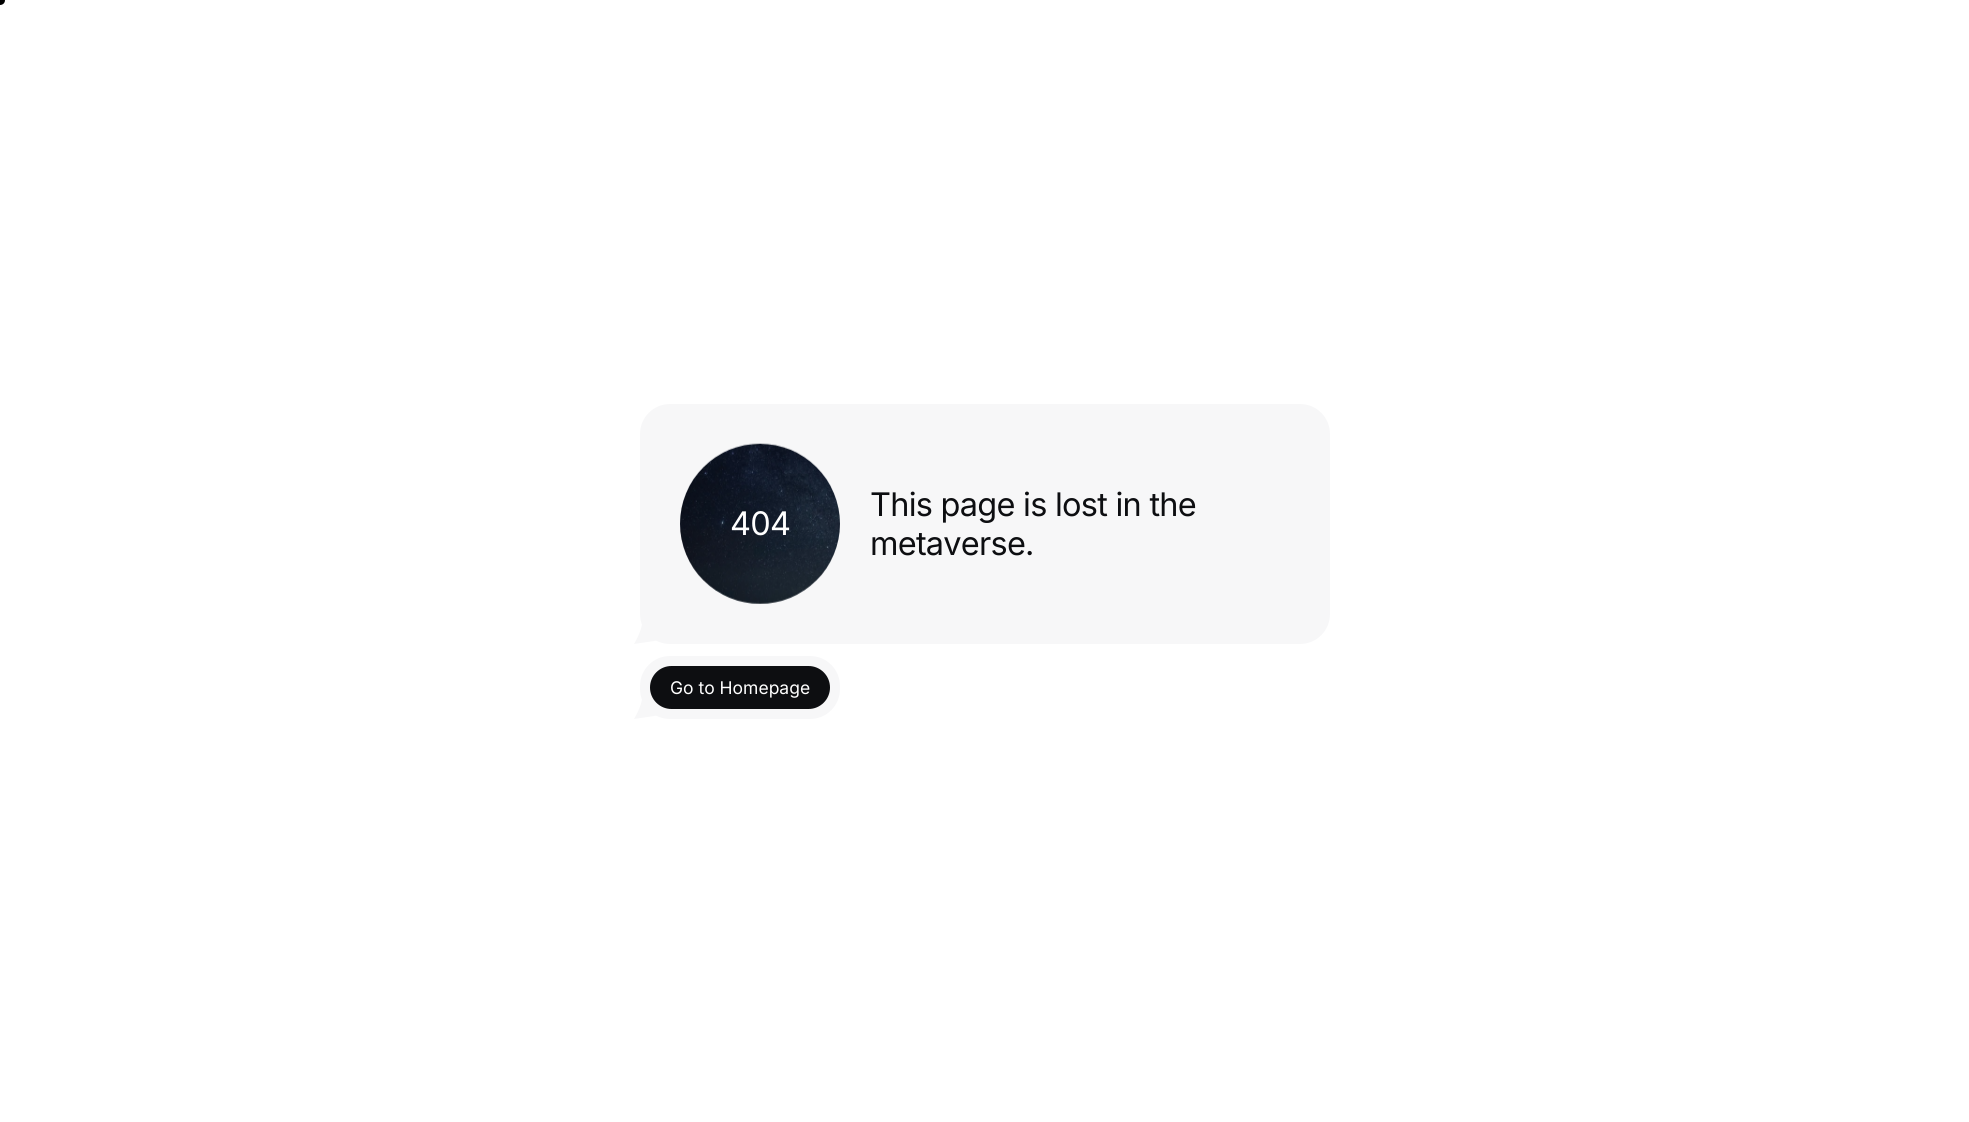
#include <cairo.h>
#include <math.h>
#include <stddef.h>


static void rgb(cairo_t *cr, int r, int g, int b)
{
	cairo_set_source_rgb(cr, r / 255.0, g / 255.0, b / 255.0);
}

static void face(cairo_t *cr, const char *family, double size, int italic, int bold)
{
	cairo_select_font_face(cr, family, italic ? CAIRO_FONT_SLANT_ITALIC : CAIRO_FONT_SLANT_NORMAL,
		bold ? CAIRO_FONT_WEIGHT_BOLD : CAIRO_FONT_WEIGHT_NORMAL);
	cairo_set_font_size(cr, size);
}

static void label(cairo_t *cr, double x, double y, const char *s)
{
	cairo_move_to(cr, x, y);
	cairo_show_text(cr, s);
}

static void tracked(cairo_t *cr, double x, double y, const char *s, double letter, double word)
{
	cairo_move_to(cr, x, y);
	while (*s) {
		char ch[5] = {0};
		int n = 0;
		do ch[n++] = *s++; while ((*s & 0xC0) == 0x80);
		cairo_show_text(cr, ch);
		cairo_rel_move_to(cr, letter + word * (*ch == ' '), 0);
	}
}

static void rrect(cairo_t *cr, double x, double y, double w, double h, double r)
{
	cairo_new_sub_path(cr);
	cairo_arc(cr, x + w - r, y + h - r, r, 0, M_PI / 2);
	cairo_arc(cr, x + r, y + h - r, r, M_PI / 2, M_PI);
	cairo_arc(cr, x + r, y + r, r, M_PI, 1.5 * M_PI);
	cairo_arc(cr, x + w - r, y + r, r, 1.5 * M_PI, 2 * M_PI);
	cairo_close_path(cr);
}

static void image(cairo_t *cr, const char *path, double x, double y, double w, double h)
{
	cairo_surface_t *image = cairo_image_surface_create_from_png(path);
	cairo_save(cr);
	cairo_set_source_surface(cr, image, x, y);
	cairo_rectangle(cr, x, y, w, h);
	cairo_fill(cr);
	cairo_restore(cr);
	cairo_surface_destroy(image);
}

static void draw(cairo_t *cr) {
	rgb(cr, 255, 255, 255);
	cairo_paint(cr);
	rgb(cr, 0, 0, 0);
	cairo_arc(cr, 0, 0, 5, 0, 2 * M_PI);
	cairo_fill(cr);
	rgb(cr, 247, 247, 248);
	rrect(cr, 640, 404, 690, 240, 30);
	cairo_fill(cr);
	image(cr, "image0.png", 680, 443, 160, 161);
	face(cr, "Inter", 32.5, 0, 0);
	rgb(cr, 255, 255, 255);
	tracked(cr, 730, 535, "404", -0.75, 0);
	rgb(cr, 13, 14, 17);
	tracked(cr, 870, 516, "This page is lost in the", -0.75, 0);
	tracked(cr, 870, 555, "metaverse.", -0.75, 0);
	rgb(cr, 247, 247, 248);
	cairo_new_path(cr);
	cairo_move_to(cr, 634, 644);
	cairo_line_to(cr, 664, 639.5);
	cairo_line_to(cr, 642.5, 614);
	cairo_curve_to(cr, 644, 624, 639, 635.5, 634, 644);
	cairo_close_path(cr);
	cairo_fill(cr);
	rrect(cr, 640, 656, 200, 63, 30);
	cairo_fill(cr);
	rgb(cr, 13, 14, 17);
	rrect(cr, 650, 666, 180, 43, 21.5);
	cairo_fill(cr);
	rgb(cr, 247, 247, 248);
	cairo_new_path(cr);
	cairo_move_to(cr, 634, 719);
	cairo_line_to(cr, 664, 714.5);
	cairo_line_to(cr, 642.5, 689);
	cairo_curve_to(cr, 644, 699, 639, 710.5, 634, 719);
	cairo_close_path(cr);
	cairo_fill(cr);
	face(cr, "Inter", 17.5, 0, 0);
	rgb(cr, 255, 255, 255);
	label(cr, 670, 694, "Go to Homepage");
}

int main(void) {
	cairo_surface_t *surface = cairo_image_surface_create(CAIRO_FORMAT_RGB24, 1969, 1122);
	cairo_t *cr = cairo_create(surface);
	cairo_font_options_t *options = cairo_font_options_create();
	cairo_font_options_set_hint_metrics(options, CAIRO_HINT_METRICS_OFF);
	cairo_font_options_set_hint_style(options, CAIRO_HINT_STYLE_NONE);
	cairo_set_font_options(cr, options);
	cairo_set_miter_limit(cr, 4);
	draw(cr);
	cairo_surface_write_to_png(surface, "render.png");
	cairo_font_options_destroy(options);
	cairo_destroy(cr);
	cairo_surface_destroy(surface);
	return 0;
}
